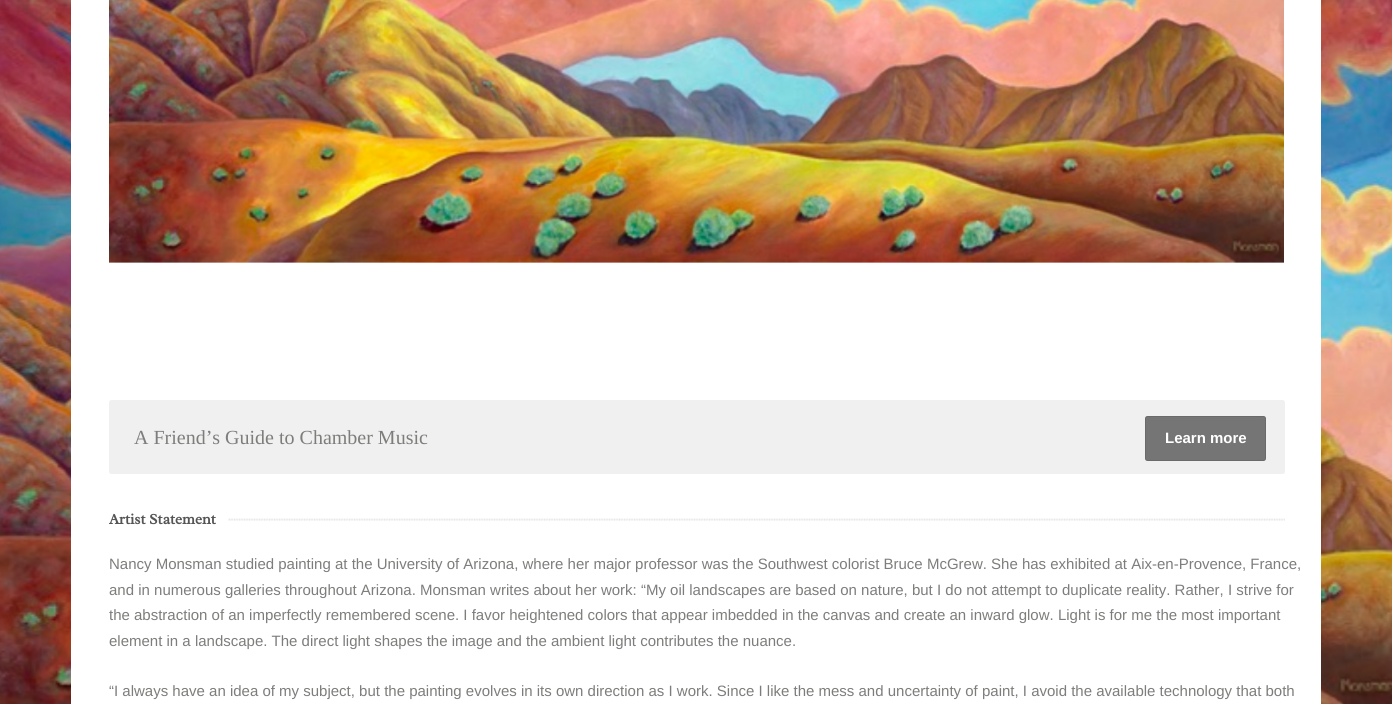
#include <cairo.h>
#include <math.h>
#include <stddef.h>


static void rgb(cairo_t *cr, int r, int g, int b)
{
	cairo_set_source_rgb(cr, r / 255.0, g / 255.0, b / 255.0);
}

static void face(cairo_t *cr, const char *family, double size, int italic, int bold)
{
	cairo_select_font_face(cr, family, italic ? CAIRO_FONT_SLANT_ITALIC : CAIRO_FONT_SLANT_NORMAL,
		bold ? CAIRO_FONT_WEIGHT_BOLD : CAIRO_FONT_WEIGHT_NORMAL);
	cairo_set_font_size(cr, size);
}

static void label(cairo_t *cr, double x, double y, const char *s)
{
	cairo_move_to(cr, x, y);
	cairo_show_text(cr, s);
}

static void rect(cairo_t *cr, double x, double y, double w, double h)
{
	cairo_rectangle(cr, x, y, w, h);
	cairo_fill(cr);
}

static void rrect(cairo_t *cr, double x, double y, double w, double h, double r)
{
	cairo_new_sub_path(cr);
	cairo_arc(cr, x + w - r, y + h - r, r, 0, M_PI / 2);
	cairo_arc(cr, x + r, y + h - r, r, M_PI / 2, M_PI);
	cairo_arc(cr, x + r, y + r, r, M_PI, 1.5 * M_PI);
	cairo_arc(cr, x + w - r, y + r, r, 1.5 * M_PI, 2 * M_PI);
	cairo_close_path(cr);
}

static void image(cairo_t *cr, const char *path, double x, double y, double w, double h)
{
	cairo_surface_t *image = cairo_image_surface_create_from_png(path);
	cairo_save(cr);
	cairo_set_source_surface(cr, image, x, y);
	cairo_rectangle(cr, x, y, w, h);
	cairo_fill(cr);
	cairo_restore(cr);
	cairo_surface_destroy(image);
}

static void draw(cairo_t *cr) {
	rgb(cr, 255, 255, 255);
	cairo_paint(cr);
	image(cr, "image0.png", 0, 0, 1392, 704);
	rgb(cr, 255, 255, 255);
	rect(cr, 71, 0, 1250, 704);
	image(cr, "image1.png", 109, 0, 1175, 263);
	rgb(cr, 240, 240, 240);
	rrect(cr, 109, 400, 1176, 74, 2.5);
	cairo_fill(cr);
	face(cr, "Liberation Serif", 20, 0, 0);
	rgb(cr, 125, 125, 123);
	label(cr, 134, 444, "A Friend’s Guide to Chamber Music");
	rgb(cr, 117, 117, 117);
	rrect(cr, 1145, 416, 121, 45, 2.5);
	cairo_fill(cr);
	rrect(cr, 1145.5, 416.5, 120, 44, 2);
	cairo_set_source_rgba(cr, 0, 0, 0, 0.1);
	cairo_set_line_width(cr, 1);
	cairo_stroke(cr);
	face(cr, "Liberation Sans", 15, 0, 1);
	rgb(cr, 255, 255, 255);
	label(cr, 1165, 443, "Learn more");
	image(cr, "image2.png", 228, 518, 1057, 3);
	face(cr, "Radley", 15, 0, 1);
	rgb(cr, 85, 85, 85);
	label(cr, 109, 524, "Artist Statement");
	face(cr, "Liberation Sans", 15, 0, 0);
	rgb(cr, 125, 125, 123);
	label(cr, 109, 569, "Nancy Monsman studied painting at the University of Arizona, where her major professor was the Southwest colorist Bruce McGrew. She has exhibited at Aix-en-Provence, France,");
	label(cr, 109, 595, "and in numerous galleries throughout Arizona. Monsman writes about her work: “My oil landscapes are based on nature, but I do not attempt to duplicate reality. Rather, I strive for");
	label(cr, 109, 620, "the abstraction of an imperfectly remembered scene. I favor heightened colors that appear imbedded in the canvas and create an inward glow. Light is for me the most important");
	label(cr, 109, 646, "element in a landscape. The direct light shapes the image and the ambient light contributes the nuance.");
	label(cr, 109, 696, "“I always have an idea of my subject, but the painting evolves in its own direction as I work. Since I like the mess and uncertainty of paint, I avoid the available technology that both");
}

int main(void) {
	cairo_surface_t *surface = cairo_image_surface_create(CAIRO_FORMAT_RGB24, 1392, 704);
	cairo_t *cr = cairo_create(surface);
	cairo_font_options_t *options = cairo_font_options_create();
	cairo_font_options_set_hint_metrics(options, CAIRO_HINT_METRICS_OFF);
	cairo_font_options_set_hint_style(options, CAIRO_HINT_STYLE_NONE);
	cairo_set_font_options(cr, options);
	cairo_set_miter_limit(cr, 4);
	draw(cr);
	cairo_surface_write_to_png(surface, "render.png");
	cairo_font_options_destroy(options);
	cairo_destroy(cr);
	cairo_surface_destroy(surface);
	return 0;
}
